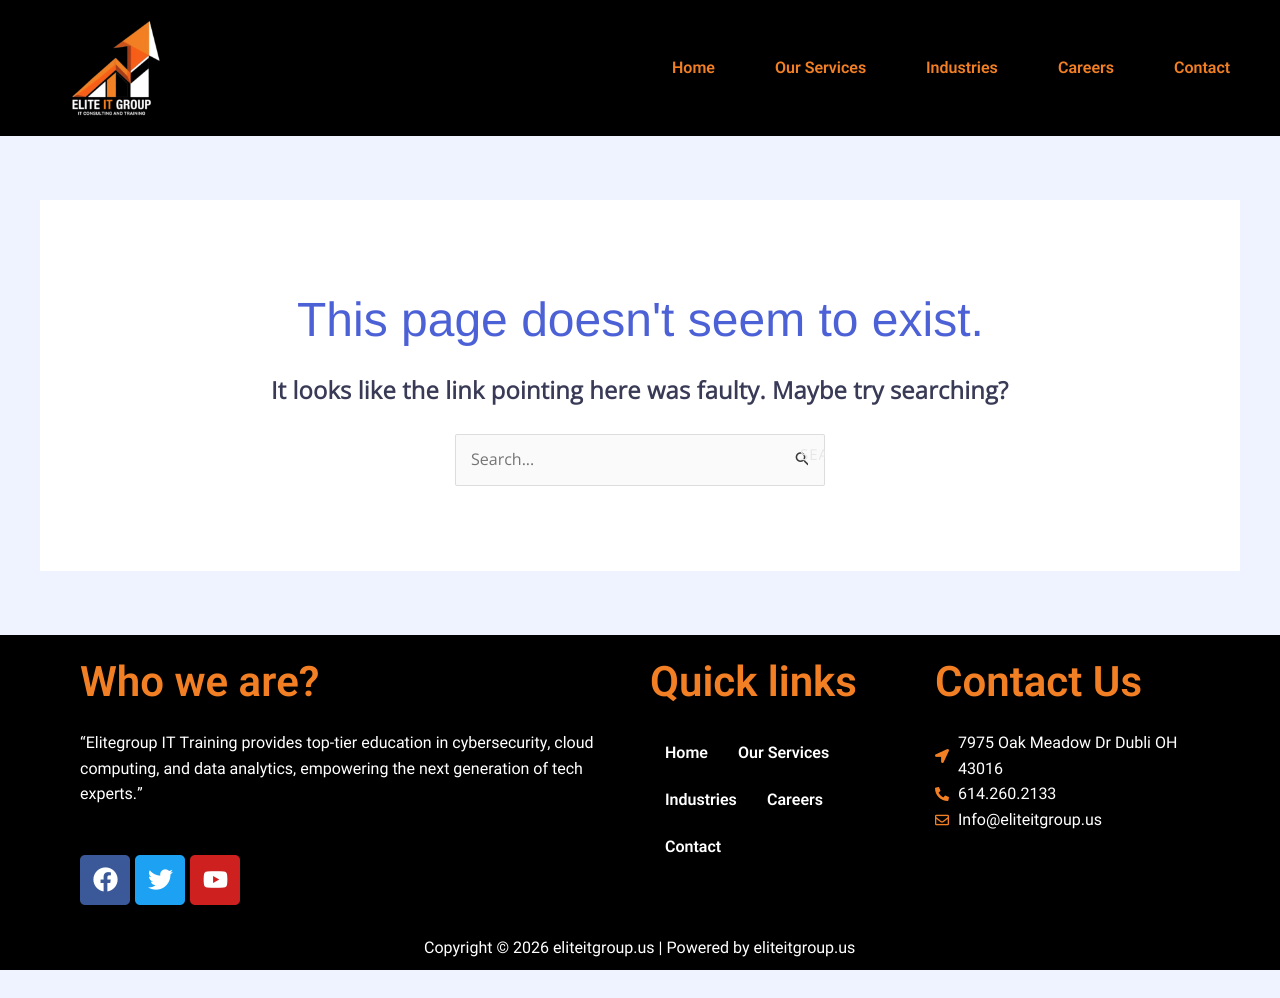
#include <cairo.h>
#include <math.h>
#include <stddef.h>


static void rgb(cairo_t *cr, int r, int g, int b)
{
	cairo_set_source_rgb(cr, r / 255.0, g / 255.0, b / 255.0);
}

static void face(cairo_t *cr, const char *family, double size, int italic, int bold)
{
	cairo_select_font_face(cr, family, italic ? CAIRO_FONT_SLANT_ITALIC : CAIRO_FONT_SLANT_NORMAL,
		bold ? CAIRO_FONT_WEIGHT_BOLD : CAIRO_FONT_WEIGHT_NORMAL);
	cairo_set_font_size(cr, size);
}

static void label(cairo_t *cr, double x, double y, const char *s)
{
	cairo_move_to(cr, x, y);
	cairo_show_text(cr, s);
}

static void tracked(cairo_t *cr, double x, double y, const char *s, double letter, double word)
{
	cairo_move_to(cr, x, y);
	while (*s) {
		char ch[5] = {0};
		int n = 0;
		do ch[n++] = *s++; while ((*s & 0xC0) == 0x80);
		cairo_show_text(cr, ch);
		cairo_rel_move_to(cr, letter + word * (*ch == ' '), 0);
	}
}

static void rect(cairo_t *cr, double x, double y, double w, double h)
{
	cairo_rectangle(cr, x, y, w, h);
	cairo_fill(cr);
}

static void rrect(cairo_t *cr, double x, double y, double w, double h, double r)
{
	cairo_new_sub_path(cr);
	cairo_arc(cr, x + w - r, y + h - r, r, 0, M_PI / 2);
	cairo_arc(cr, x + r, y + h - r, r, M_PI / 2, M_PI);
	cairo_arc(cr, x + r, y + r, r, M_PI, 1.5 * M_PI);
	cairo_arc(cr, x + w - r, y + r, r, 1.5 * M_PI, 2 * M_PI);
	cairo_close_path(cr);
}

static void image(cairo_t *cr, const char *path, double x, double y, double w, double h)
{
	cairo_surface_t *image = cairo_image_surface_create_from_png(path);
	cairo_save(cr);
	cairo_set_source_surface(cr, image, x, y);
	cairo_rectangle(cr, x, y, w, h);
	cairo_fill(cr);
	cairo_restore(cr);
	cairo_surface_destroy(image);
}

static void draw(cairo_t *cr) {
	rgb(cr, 239, 242, 255);
	cairo_paint(cr);
	rgb(cr, 0, 0, 0);
	rect(cr, 0, 0, 1280, 136);
	image(cr, "image0.png", 72, 20, 88, 96);
	face(cr, "Roboto SemiBold", 16, 0, 0);
	rgb(cr, 242, 127, 36);
	label(cr, 672, 73, "Home");
	label(cr, 775, 73, "Our Services");
	label(cr, 926, 73, "Industries");
	label(cr, 1058, 73, "Careers");
	label(cr, 1174, 73, "Contact");
	rgb(cr, 255, 255, 255);
	rect(cr, 40, 200, 1200, 371);
	face(cr, "Liberation Sans", 48, 0, 0);
	rgb(cr, 77, 97, 214);
	label(cr, 297, 336, "This page doesn't seem to exist.");
	face(cr, "Open Sans", 24, 0, 1);
	rgb(cr, 57, 58, 86);
	label(cr, 271, 399, "It looks like the link pointing here was faulty. Maybe try searching?");
	rgb(cr, 250, 250, 250);
	rrect(cr, 455.5, 434.5, 369, 51, 1.5);
	cairo_fill_preserve(cr);
	rgb(cr, 221, 221, 221);
	cairo_set_line_width(cr, 1);
	cairo_stroke(cr);
	face(cr, "Open Sans", 16, 0, 0);
	rgb(cr, 117, 117, 117);
	label(cr, 471, 465, "Search...");
	image(cr, "image1.png", 795, 452, 13, 14);
	cairo_save(cr);
	rrect(cr, 780, 434, 45, 41, 2);
	cairo_clip(cr);
	face(cr, "Open Sans", 15, 0, 0);
	rgb(cr, 231, 231, 231);
	tracked(cr, 800, 460, "SEA", 1, 0);
	cairo_restore(cr);
	rgb(cr, 0, 0, 0);
	rect(cr, 0, 635, 1280, 335);
	face(cr, "Roboto SemiBold", 42, 0, 0);
	rgb(cr, 242, 127, 36);
	label(cr, 80, 696, "Who we are?");
	face(cr, "Roboto", 16, 0, 0);
	rgb(cr, 255, 255, 255);
	label(cr, 80, 748, "“Elitegroup IT Training provides top-tier education in cybersecurity, cloud");
	label(cr, 80, 774, "computing, and data analytics, empowering the next generation of tech");
	label(cr, 80, 799, "experts.”");
	rgb(cr, 59, 89, 152);
	rrect(cr, 80, 855, 50, 50, 5);
	cairo_fill(cr);
	image(cr, "image2.png", 93, 867, 25, 25);
	rgb(cr, 29, 161, 242);
	rrect(cr, 135, 855, 50, 50, 5);
	cairo_fill(cr);
	image(cr, "image3.png", 148, 869, 25, 21);
	rgb(cr, 205, 32, 31);
	rrect(cr, 190, 855, 50, 50, 5);
	cairo_fill(cr);
	image(cr, "image4.png", 203, 871, 25, 17);
	face(cr, "Roboto SemiBold", 42, 0, 0);
	rgb(cr, 242, 127, 36);
	label(cr, 650, 696, "Quick links");
	face(cr, "Roboto SemiBold", 16, 0, 0);
	rgb(cr, 255, 255, 255);
	label(cr, 665, 758, "Home");
	label(cr, 738, 758, "Our Services");
	label(cr, 665, 805, "Industries");
	label(cr, 767, 805, "Careers");
	label(cr, 665, 852, "Contact");
	face(cr, "Roboto SemiBold", 42, 0, 0);
	rgb(cr, 242, 127, 36);
	label(cr, 935, 696, "Contact Us");
	image(cr, "image5.png", 935, 749, 14, 14);
	face(cr, "Roboto", 16, 0, 0);
	rgb(cr, 255, 255, 255);
	label(cr, 958, 748, "7975 Oak Meadow Dr Dubli OH");
	label(cr, 958, 774, "43016");
	image(cr, "image6.png", 935, 787, 14, 14);
	label(cr, 958, 799, "614.260.2133");
	image(cr, "image7.png", 935, 814, 14, 12);
	label(cr, 958, 825, "Info@eliteitgroup.us");
	label(cr, 424, 953, "Copyright © 2026 eliteitgroup.us | Powered by eliteitgroup.us");
}

int main(void) {
	cairo_surface_t *surface = cairo_image_surface_create(CAIRO_FORMAT_RGB24, 1280, 998);
	cairo_t *cr = cairo_create(surface);
	cairo_font_options_t *options = cairo_font_options_create();
	cairo_font_options_set_hint_metrics(options, CAIRO_HINT_METRICS_OFF);
	cairo_font_options_set_hint_style(options, CAIRO_HINT_STYLE_NONE);
	cairo_set_font_options(cr, options);
	cairo_set_miter_limit(cr, 4);
	draw(cr);
	cairo_surface_write_to_png(surface, "render.png");
	cairo_font_options_destroy(options);
	cairo_destroy(cr);
	cairo_surface_destroy(surface);
	return 0;
}
